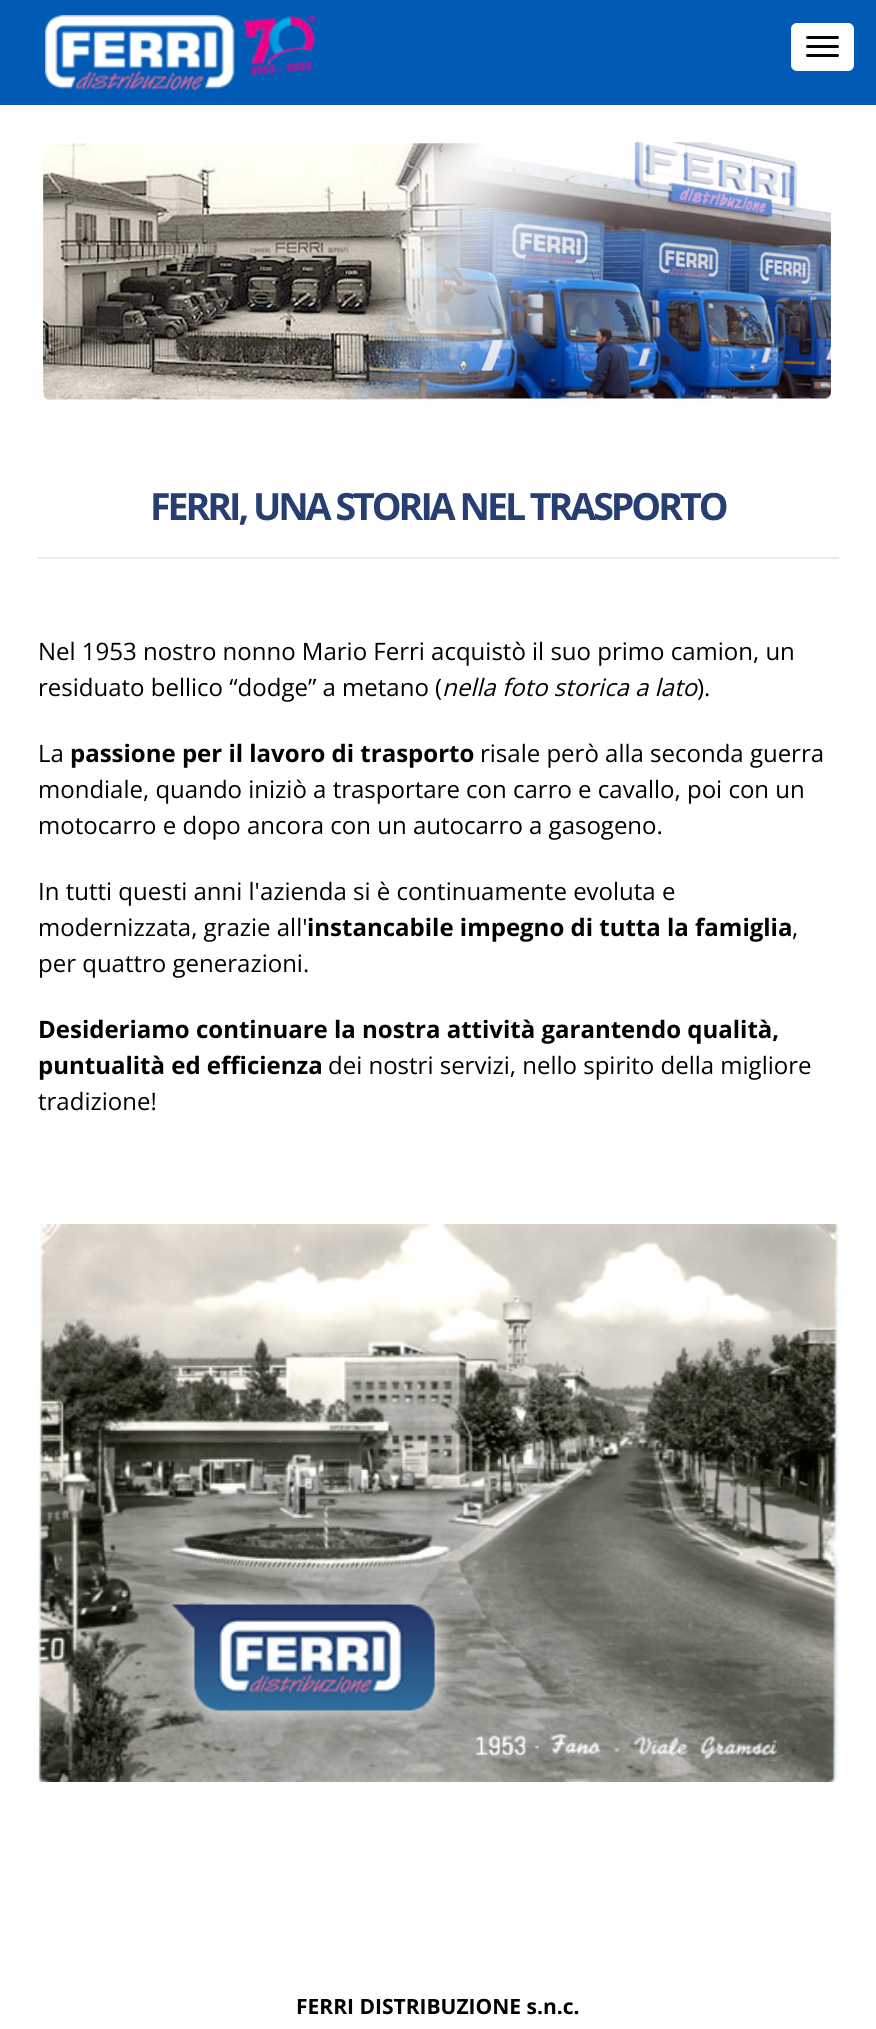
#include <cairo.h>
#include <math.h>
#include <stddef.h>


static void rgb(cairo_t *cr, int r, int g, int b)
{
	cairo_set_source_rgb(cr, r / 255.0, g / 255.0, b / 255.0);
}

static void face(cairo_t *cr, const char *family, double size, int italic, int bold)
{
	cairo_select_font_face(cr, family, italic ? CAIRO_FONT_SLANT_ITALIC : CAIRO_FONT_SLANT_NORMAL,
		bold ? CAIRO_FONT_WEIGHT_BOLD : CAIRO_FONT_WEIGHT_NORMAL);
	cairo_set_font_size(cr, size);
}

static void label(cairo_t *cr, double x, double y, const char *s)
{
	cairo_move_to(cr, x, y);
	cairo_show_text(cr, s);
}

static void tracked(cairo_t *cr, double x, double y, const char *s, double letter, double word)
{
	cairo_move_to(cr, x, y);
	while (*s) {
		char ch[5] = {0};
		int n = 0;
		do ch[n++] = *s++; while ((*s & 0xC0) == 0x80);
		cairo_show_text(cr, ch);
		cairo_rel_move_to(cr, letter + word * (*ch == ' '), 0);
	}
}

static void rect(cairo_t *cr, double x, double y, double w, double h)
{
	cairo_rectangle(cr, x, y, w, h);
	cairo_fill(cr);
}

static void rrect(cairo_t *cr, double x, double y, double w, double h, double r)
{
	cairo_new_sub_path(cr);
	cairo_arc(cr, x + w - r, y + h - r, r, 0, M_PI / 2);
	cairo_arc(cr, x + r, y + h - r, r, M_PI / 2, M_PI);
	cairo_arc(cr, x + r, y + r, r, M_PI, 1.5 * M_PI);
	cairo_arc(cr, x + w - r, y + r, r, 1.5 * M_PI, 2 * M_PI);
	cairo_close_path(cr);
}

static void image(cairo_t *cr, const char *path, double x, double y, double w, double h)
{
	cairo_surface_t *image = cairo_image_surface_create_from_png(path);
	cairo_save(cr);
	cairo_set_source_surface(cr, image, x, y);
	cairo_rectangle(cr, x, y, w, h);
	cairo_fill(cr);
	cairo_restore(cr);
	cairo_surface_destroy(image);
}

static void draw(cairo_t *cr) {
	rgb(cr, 255, 255, 255);
	cairo_paint(cr);
	rgb(cr, 1, 91, 181);
	rect(cr, 0, 0, 876, 105);
	image(cr, "image0.png", 45, 15, 270, 75);
	rgb(cr, 255, 255, 255);
	rrect(cr, 791, 23, 63, 48, 6);
	cairo_fill(cr);
	rgb(cr, 3, 3, 3);
	rrect(cr, 806, 36, 33, 3, 1.5);
	cairo_fill(cr);
	rrect(cr, 806, 45, 33, 3, 1.5);
	cairo_fill(cr);
	rrect(cr, 806, 54, 33, 3, 1.5);
	cairo_fill(cr);
	image(cr, "image1.png", 39, 139, 792, 264);
	rgb(cr, 234, 234, 234);
	rect(cr, 38, 557, 801, 2);
	face(cr, "Open Sans", 37.5, 0, 1);
	rgb(cr, 38, 62, 113);
	tracked(cr, 150, 520, "FERRI, UNA STORIA NEL TRASPORTO", -3, 0);
	face(cr, "Open Sans", 24, 0, 0);
	rgb(cr, 0, 0, 0);
	label(cr, 38, 660, "Nel 1953 nostro nonno Mario Ferri acquistò il suo primo camion, un");
	label(cr, 38, 696, "residuato bellico “dodge” a metano (");
	face(cr, "Open Sans", 24, 1, 0);
	label(cr, 442, 696, "nella foto storica a lato");
	face(cr, "Open Sans", 24, 0, 0);
	label(cr, 697, 696, ").");
	label(cr, 38, 762, "La");
	face(cr, "Open Sans", 24, 0, 1);
	label(cr, 70, 762, "passione per il lavoro di trasporto");
	face(cr, "Open Sans", 24, 0, 0);
	label(cr, 480, 762, "risale però alla seconda guerra");
	label(cr, 38, 798, "mondiale, quando iniziò a trasportare con carro e cavallo, poi con un");
	label(cr, 38, 834, "motocarro e dopo ancora con un autocarro a gasogeno.");
	label(cr, 38, 900, "In tutti questi anni l'azienda si è continuamente evoluta e");
	label(cr, 38, 936, "modernizzata, grazie all'");
	face(cr, "Open Sans", 24, 0, 1);
	label(cr, 307, 936, "instancabile impegno di tutta la famiglia");
	face(cr, "Open Sans", 24, 0, 0);
	label(cr, 792, 936, ",");
	label(cr, 38, 972, "per quattro generazioni.");
	face(cr, "Open Sans", 24, 0, 1);
	label(cr, 38, 1038, "Desideriamo continuare la nostra attività garantendo qualità,");
	label(cr, 38, 1074, "puntualità ed efficienza");
	face(cr, "Open Sans", 24, 0, 0);
	label(cr, 328, 1074, "dei nostri servizi, nello spirito della migliore");
	label(cr, 38, 1110, "tradizione!");
	image(cr, "image2.png", 37, 1224, 802, 558);
	face(cr, "Open Sans", 21, 0, 1);
	label(cr, 296, 2014, "FERRI DISTRIBUZIONE s.n.c.");
}

int main(void) {
	cairo_surface_t *surface = cairo_image_surface_create(CAIRO_FORMAT_RGB24, 876, 2029);
	cairo_t *cr = cairo_create(surface);
	cairo_font_options_t *options = cairo_font_options_create();
	cairo_font_options_set_hint_metrics(options, CAIRO_HINT_METRICS_OFF);
	cairo_font_options_set_hint_style(options, CAIRO_HINT_STYLE_NONE);
	cairo_set_font_options(cr, options);
	cairo_set_miter_limit(cr, 4);
	draw(cr);
	cairo_surface_write_to_png(surface, "render.png");
	cairo_font_options_destroy(options);
	cairo_destroy(cr);
	cairo_surface_destroy(surface);
	return 0;
}
